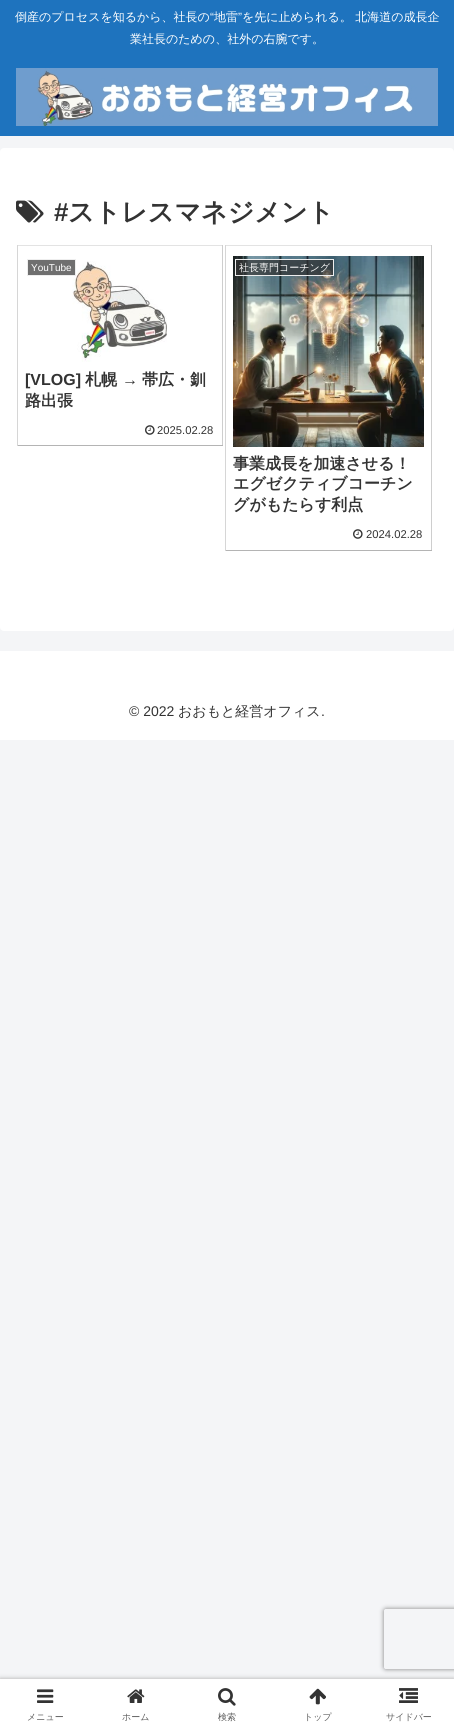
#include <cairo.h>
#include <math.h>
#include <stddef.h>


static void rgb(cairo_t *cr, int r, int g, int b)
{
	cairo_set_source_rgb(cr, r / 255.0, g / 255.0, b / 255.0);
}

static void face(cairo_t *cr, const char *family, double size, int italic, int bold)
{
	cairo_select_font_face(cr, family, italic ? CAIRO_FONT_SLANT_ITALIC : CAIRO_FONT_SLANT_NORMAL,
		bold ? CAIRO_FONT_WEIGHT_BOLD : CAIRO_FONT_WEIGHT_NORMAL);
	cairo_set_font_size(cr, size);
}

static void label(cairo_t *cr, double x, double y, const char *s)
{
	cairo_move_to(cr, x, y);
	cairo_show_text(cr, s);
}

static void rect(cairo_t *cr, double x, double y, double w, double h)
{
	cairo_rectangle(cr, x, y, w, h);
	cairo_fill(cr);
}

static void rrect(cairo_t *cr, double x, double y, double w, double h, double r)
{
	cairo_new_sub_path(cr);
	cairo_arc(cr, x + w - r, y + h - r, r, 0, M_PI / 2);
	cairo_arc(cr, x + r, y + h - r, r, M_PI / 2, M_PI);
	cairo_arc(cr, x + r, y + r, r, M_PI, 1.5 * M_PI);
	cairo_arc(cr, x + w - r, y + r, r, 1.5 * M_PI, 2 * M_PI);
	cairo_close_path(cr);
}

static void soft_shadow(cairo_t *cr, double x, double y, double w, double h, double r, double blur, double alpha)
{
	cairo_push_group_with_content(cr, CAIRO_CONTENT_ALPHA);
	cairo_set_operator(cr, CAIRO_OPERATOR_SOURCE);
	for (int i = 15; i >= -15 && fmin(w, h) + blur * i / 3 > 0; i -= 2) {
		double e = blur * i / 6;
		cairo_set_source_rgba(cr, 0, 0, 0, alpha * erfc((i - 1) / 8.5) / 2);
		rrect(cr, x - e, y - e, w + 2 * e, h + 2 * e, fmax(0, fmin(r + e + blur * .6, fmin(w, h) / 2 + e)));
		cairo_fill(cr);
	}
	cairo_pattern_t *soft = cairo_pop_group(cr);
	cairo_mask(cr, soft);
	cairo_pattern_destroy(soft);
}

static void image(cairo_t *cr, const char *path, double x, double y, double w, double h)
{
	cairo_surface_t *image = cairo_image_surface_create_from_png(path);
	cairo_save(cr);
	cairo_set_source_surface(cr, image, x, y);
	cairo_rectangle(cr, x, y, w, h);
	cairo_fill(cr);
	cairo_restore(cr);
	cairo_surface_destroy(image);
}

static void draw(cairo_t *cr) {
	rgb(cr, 244, 245, 247);
	cairo_paint(cr);
	rgb(cr, 30, 115, 190);
	rect(cr, 0, 0, 454, 136);
	face(cr, "WenQuanYi Zen Hei Medium", 12, 0, 0);
	rgb(cr, 255, 255, 255);
	label(cr, 15, 21, "倒産のプロセスを知るから、社長の");
	face(cr, "Liberation Sans", 12, 0, 0);
	label(cr, 210, 21, "“");
	face(cr, "WenQuanYi Zen Hei Medium", 12, 0, 0);
	label(cr, 214, 21, "地雷");
	face(cr, "Liberation Sans", 12, 0, 0);
	label(cr, 238, 21, "”");
	face(cr, "WenQuanYi Zen Hei Medium", 12, 0, 0);
	label(cr, 242, 21, "を先に止められる。 北海道の成長企");
	label(cr, 130, 43, "業社長のための、社外の右腕です。");
	image(cr, "image0.png", 16, 68, 422, 58);
	rrect(cr, 0, 148, 454, 483, 4);
	cairo_fill(cr);
	image(cr, "image1.png", 16, 200, 28, 23);
	face(cr, "Liberation Sans", 26, 0, 1);
	rgb(cr, 51, 51, 51);
	label(cr, 54, 221, "#");
	face(cr, "WenQuanYi Zen Hei", 26, 0, 1);
	label(cr, 68, 221, "ストレスマネジメント");
	rgb(cr, 227, 227, 227);
	rect(cr, 17, 245, 206, 1);
	rgb(cr, 206, 206, 206);
	rect(cr, 222, 245, 1, 201);
	rgb(cr, 180, 180, 180);
	rect(cr, 17, 445, 206, 1);
	rgb(cr, 214, 214, 214);
	rect(cr, 17, 245, 1, 201);
	image(cr, "image2.png", 72, 261, 95, 101);
	cairo_set_source_rgba(cr, 0.2, 0.2, 0.2, 0.7);
	cairo_rectangle(cr, 27.5, 259.5, 48, 16);
	cairo_fill_preserve(cr);
	rgb(cr, 238, 238, 238);
	cairo_set_line_width(cr, 1);
	cairo_stroke(cr);
	face(cr, "Liberation Sans", 10, 0, 0);
	rgb(cr, 255, 255, 255);
	label(cr, 31, 271, "YouTube");
	face(cr, "Liberation Sans", 16, 0, 1);
	rgb(cr, 51, 51, 51);
	label(cr, 25, 385, "[VLOG]");
	face(cr, "WenQuanYi Zen Hei", 16, 0, 1);
	label(cr, 85, 385, "札幌");
	face(cr, "Liberation Sans", 16, 0, 1);
	label(cr, 122, 385, "→");
	face(cr, "WenQuanYi Zen Hei", 16, 0, 1);
	label(cr, 142, 385, "帯広・釧");
	label(cr, 25, 406, "路出張");
	image(cr, "image3.png", 145, 425, 10, 10);
	face(cr, "Liberation Sans", 11.25, 0, 0);
	label(cr, 157, 434, "2025.02.28");
	rgb(cr, 227, 227, 227);
	rect(cr, 225, 245, 207, 1);
	rgb(cr, 206, 206, 206);
	rect(cr, 431, 245, 1, 306);
	rgb(cr, 180, 180, 180);
	rect(cr, 225, 550, 207, 1);
	rgb(cr, 214, 214, 214);
	rect(cr, 225, 245, 1, 306);
	image(cr, "image4.png", 233, 256, 191, 191);
	cairo_set_source_rgba(cr, 0.2, 0.2, 0.2, 0.7);
	cairo_rectangle(cr, 235.5, 259.5, 98, 16);
	cairo_fill_preserve(cr);
	rgb(cr, 238, 238, 238);
	cairo_stroke(cr);
	face(cr, "WenQuanYi Zen Hei Medium", 10, 0, 0);
	rgb(cr, 255, 255, 255);
	label(cr, 239, 271, "社長専門コーチング");
	face(cr, "WenQuanYi Zen Hei", 16, 0, 1);
	rgb(cr, 51, 51, 51);
	label(cr, 233, 469, "事業成長を加速させる！");
	label(cr, 233, 489, "エグゼクティブコーチン");
	label(cr, 233, 510, "グがもたらす利点");
	image(cr, "image3.png", 353, 529, 10, 10);
	face(cr, "Liberation Sans", 11.25, 0, 0);
	label(cr, 366, 538, "2024.02.28");
	rgb(cr, 255, 255, 255);
	rect(cr, 0, 651, 454, 89);
	face(cr, "Liberation Sans", 14, 0, 0);
	rgb(cr, 51, 51, 51);
	label(cr, 129, 716, "© 2022");
	face(cr, "WenQuanYi Zen Hei Medium", 14, 0, 0);
	label(cr, 178, 716, "おおもと経営オフィス");
	face(cr, "Liberation Sans", 14, 0, 0);
	label(cr, 321, 716, ".");
	rgb(cr, 169, 169, 169);
	soft_shadow(cr, 0, 1679, 454, 50, 0, 2.5, 1);
	rgb(cr, 255, 255, 255);
	rect(cr, 0, 1679, 454, 50);
	image(cr, "image5.png", 37, 1689, 17, 14);
	face(cr, "WenQuanYi Zen Hei Medium", 9, 0, 0);
	rgb(cr, 92, 92, 92);
	label(cr, 27, 1720, "メニュー");
	image(cr, "image6.png", 127, 1689, 18, 14);
	label(cr, 122, 1720, "ホーム");
	image(cr, "image7.png", 218, 1688, 18, 18);
	label(cr, 218, 1720, "検索");
	image(cr, "image8.png", 309, 1688, 17, 17);
	label(cr, 304, 1720, "トップ");
	image(cr, "image9.png", 399, 1688, 19, 15);
	label(cr, 386, 1720, "サイドバー");
	cairo_save(cr);
	cairo_set_fill_rule(cr, CAIRO_FILL_RULE_EVEN_ODD);
	cairo_new_path(cr);
	cairo_move_to(cr, 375, 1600);
	cairo_line_to(cr, 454, 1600);
	cairo_line_to(cr, 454, 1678);
	cairo_line_to(cr, 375, 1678);
	cairo_close_path(cr);
	cairo_move_to(cr, 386, 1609);
	cairo_line_to(cr, 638, 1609);
	cairo_curve_to(cr, 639, 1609, 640, 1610, 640, 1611);
	cairo_line_to(cr, 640, 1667);
	cairo_curve_to(cr, 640, 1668, 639, 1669, 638, 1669);
	cairo_line_to(cr, 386, 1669);
	cairo_curve_to(cr, 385, 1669, 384, 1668, 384, 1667);
	cairo_line_to(cr, 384, 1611);
	cairo_curve_to(cr, 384, 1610, 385, 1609, 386, 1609);
	cairo_close_path(cr);
	cairo_clip(cr);
	rgb(cr, 128, 128, 128);
	soft_shadow(cr, 384, 1609, 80, 60, 2, 2.5, 1);
	cairo_restore(cr);
}

int main(void) {
	cairo_surface_t *surface = cairo_image_surface_create(CAIRO_FORMAT_RGB24, 454, 1729);
	cairo_t *cr = cairo_create(surface);
	cairo_font_options_t *options = cairo_font_options_create();
	cairo_font_options_set_hint_metrics(options, CAIRO_HINT_METRICS_OFF);
	cairo_font_options_set_hint_style(options, CAIRO_HINT_STYLE_NONE);
	cairo_set_font_options(cr, options);
	cairo_set_miter_limit(cr, 4);
	draw(cr);
	cairo_surface_write_to_png(surface, "render.png");
	cairo_font_options_destroy(options);
	cairo_destroy(cr);
	cairo_surface_destroy(surface);
	return 0;
}
